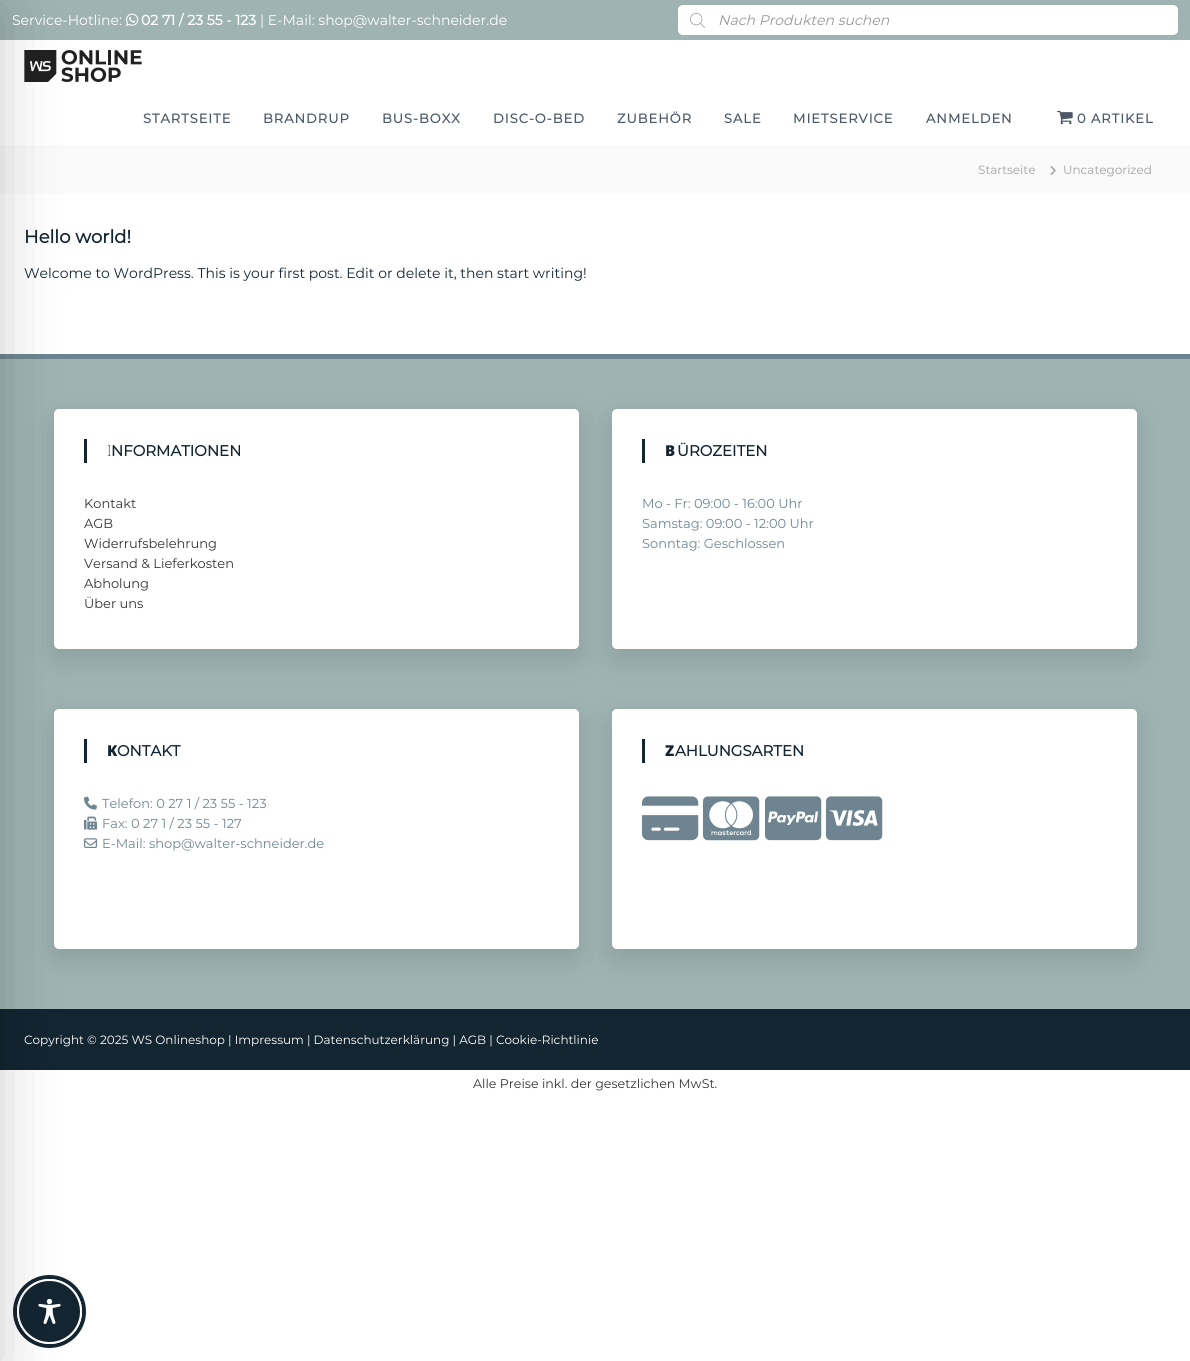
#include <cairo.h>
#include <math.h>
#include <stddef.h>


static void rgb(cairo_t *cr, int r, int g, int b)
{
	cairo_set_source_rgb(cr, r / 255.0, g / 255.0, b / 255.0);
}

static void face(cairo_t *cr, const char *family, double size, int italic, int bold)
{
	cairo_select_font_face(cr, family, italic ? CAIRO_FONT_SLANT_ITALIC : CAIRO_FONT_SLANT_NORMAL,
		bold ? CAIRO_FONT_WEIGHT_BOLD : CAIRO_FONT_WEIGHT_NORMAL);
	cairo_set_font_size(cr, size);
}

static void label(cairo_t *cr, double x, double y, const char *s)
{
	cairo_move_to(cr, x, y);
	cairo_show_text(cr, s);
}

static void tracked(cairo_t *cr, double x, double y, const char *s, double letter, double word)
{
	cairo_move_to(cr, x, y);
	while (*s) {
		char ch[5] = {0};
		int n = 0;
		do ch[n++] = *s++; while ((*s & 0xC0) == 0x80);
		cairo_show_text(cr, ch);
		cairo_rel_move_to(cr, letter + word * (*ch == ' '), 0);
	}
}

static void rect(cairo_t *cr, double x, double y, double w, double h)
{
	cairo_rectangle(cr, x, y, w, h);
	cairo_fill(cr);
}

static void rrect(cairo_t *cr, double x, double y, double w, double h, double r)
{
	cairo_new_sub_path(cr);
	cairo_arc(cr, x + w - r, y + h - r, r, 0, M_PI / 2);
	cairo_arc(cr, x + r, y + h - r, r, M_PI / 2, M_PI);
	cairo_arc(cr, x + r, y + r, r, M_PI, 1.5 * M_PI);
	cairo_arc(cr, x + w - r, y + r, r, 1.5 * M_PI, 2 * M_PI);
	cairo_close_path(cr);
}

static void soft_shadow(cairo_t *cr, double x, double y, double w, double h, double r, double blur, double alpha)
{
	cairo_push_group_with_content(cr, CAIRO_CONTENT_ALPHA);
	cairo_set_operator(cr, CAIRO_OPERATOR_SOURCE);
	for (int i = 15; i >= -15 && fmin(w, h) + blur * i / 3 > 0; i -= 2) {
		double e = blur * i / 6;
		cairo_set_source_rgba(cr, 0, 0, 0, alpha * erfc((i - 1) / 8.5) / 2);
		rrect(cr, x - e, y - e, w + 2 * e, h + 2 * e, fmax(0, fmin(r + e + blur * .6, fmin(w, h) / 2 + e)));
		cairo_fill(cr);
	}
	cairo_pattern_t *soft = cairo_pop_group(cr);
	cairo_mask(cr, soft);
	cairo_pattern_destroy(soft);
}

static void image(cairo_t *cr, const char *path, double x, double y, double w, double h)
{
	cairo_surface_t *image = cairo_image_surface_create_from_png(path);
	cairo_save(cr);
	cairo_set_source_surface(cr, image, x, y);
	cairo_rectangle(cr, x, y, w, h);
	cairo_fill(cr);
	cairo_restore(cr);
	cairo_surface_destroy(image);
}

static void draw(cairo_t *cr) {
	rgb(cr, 255, 255, 255);
	cairo_paint(cr);
	rgb(cr, 159, 179, 179);
	rect(cr, 0, 0, 1190, 40);
	image(cr, "image2.png", 24, 50, 118, 32);
	rgb(cr, 250, 250, 250);
	rect(cr, 0, 145, 1190, 49);
	rgb(cr, 159, 179, 179);
	rect(cr, 0, 359, 1190, 650);
	rgb(cr, 110, 133, 145);
	rect(cr, 0, 354, 1190, 5);
	rgb(cr, 0, 0, 0);
	soft_shadow(cr, 54, 419, 525, 240, 5, 15, 0.12);
	rgb(cr, 255, 255, 255);
	rrect(cr, 54, 409, 525, 240, 5);
	cairo_fill(cr);
	rgb(cr, 19, 37, 49);
	rect(cr, 84, 439, 3, 24);
	rgb(cr, 0, 0, 0);
	soft_shadow(cr, 54, 719, 525, 240, 5, 15, 0.12);
	rgb(cr, 255, 255, 255);
	rrect(cr, 54, 709, 525, 240, 5);
	cairo_fill(cr);
	rgb(cr, 19, 37, 49);
	rect(cr, 84, 739, 3, 24);
	image(cr, "image5.png", 84, 796, 13, 14);
	image(cr, "image6.png", 84, 816, 13, 14);
	image(cr, "image7.png", 84, 838, 13, 10);
	rect(cr, 0, 1009, 1190, 61);
	cairo_arc(cr, 49.5, 1311.5, 34.5, 0, 2 * M_PI);
	cairo_set_line_width(cr, 4);
	cairo_stroke(cr);
	cairo_arc(cr, 49.5, 1311.5, 31.5, 0, 2 * M_PI);
	cairo_fill_preserve(cr);
	rgb(cr, 255, 255, 255);
	cairo_set_line_width(cr, 2);
	cairo_stroke(cr);
	image(cr, "image12.png", 38, 1298, 23, 26);
	rgb(cr, 0, 0, 0);
	soft_shadow(cr, -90, 10, 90, 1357, 0, 30, 0.2);
	face(cr, "Montserrat", 14, 0, 0);
	rgb(cr, 255, 255, 255);
	label(cr, 12, 25, "Service-Hotline:");
	image(cr, "image0.png", 126, 13, 13, 13);
	face(cr, "Montserrat", 14, 0, 1);
	label(cr, 141, 25, "02 71 / 23 55 - 123");
	face(cr, "Montserrat", 14, 0, 0);
	label(cr, 260, 25, "| E-Mail: shop@walter-schneider.de");
	rrect(cr, 678, 5, 500, 30, 5);
	cairo_fill(cr);
	image(cr, "image1.png", 690, 13, 15, 15);
	face(cr, "Montserrat", 14, 1, 0);
	rgb(cr, 153, 153, 153);
	label(cr, 718, 25, "Nach Produkten suchen");
	face(cr, "Montserrat", 13, 0, 1);
	rgb(cr, 76, 88, 103);
	tracked(cr, 143, 123, "STARTSEITE", 1, 0);
	tracked(cr, 263, 123, "BRANDRUP", 1, 0);
	tracked(cr, 382, 123, "BUS-BOXX", 1, 0);
	tracked(cr, 493, 123, "DISC-O-BED", 1, 0);
	tracked(cr, 617, 123, "ZUBEHÖR", 1, 0);
	tracked(cr, 724, 123, "SALE", 1, 0);
	tracked(cr, 793, 123, "MIETSERVICE", 1, 0);
	tracked(cr, 926, 123, "ANMELDEN", 1, 0);
	image(cr, "image3.png", 1057, 110, 16, 15);
	tracked(cr, 1077, 123, "0 ARTIKEL", 1, 0);
	face(cr, "Montserrat", 12, 0, 0);
	rgb(cr, 161, 161, 161);
	label(cr, 978, 174, "Startseite");
	image(cr, "image4.png", 1050, 166, 6, 9);
	label(cr, 1063, 174, "Uncategorized");
	face(cr, "Montserrat", 18, 0, 1);
	rgb(cr, 19, 37, 49);
	label(cr, 24, 243, "Hello world!");
	face(cr, "Montserrat", 14, 0, 0);
	label(cr, 24, 278, "Welcome to WordPress. This is your first post. Edit or delete it, then start writing!");
	face(cr, "Noto Sans ExtraLight", 15, 0, 0);
	label(cr, 107, 456, "I");
	face(cr, "Montserrat", 15, 0, 1);
	label(cr, 111, 456, "NFORMATIONEN");
	face(cr, "Montserrat", 13, 0, 0);
	rgb(cr, 51, 51, 51);
	label(cr, 84, 508, "Kontakt");
	label(cr, 84, 528, "AGB");
	label(cr, 84, 548, "Widerrufsbelehrung");
	label(cr, 84, 568, "Versand & Lieferkosten");
	label(cr, 84, 588, "Abholung");
	label(cr, 84, 608, "Über uns");
	rgb(cr, 0, 0, 0);
	soft_shadow(cr, 612, 419, 525, 240, 5, 15, 0.12);
	rgb(cr, 255, 255, 255);
	rrect(cr, 612, 409, 525, 240, 5);
	cairo_fill(cr);
	rgb(cr, 19, 37, 49);
	rect(cr, 642, 439, 3, 24);
	face(cr, "Noto Sans Black", 15, 0, 0);
	label(cr, 665, 456, "B");
	face(cr, "Montserrat", 15, 0, 1);
	label(cr, 677, 456, "ÜROZEITEN");
	face(cr, "Montserrat", 13, 0, 0);
	rgb(cr, 110, 133, 145);
	label(cr, 642, 508, "Mo - Fr: 09:00 - 16:00 Uhr");
	label(cr, 642, 528, "Samstag: 09:00 - 12:00 Uhr");
	label(cr, 642, 548, "Sonntag: Geschlossen");
	face(cr, "Noto Sans Black", 15, 0, 0);
	rgb(cr, 19, 37, 49);
	label(cr, 107, 756, "K");
	face(cr, "Montserrat", 15, 0, 1);
	label(cr, 117, 756, "ONTAKT");
	face(cr, "Montserrat", 13, 0, 0);
	rgb(cr, 110, 133, 145);
	label(cr, 102, 808, "Telefon: 0 27 1 / 23 55 - 123");
	label(cr, 102, 828, "Fax: 0 27 1 / 23 55 - 127");
	label(cr, 102, 848, "E-Mail: shop@walter-schneider.de");
	rgb(cr, 0, 0, 0);
	soft_shadow(cr, 612, 719, 525, 240, 5, 15, 0.12);
	rgb(cr, 255, 255, 255);
	rrect(cr, 612, 709, 525, 240, 5);
	cairo_fill(cr);
	rgb(cr, 19, 37, 49);
	rect(cr, 642, 739, 3, 24);
	face(cr, "Noto Sans Black", 15, 0, 0);
	label(cr, 665, 756, "Z");
	face(cr, "Montserrat", 15, 0, 1);
	label(cr, 675, 756, "AHLUNGSARTEN");
	image(cr, "image8.png", 642, 796, 57, 45);
	image(cr, "image9.png", 703, 796, 57, 45);
	image(cr, "image10.png", 765, 796, 57, 45);
	image(cr, "image11.png", 826, 796, 57, 45);
	face(cr, "Montserrat", 12, 0, 0);
	rgb(cr, 255, 255, 255);
	label(cr, 24, 1044, "Copyright © 2025 WS Onlineshop | Impressum | Datenschutzerklärung | AGB | Cookie-Richtlinie");
	face(cr, "Montserrat", 12.6, 0, 0);
	rgb(cr, 51, 51, 51);
	label(cr, 473, 1088, "Alle Preise inkl. der gesetzlichen MwSt.");
}

int main(void) {
	cairo_surface_t *surface = cairo_image_surface_create(CAIRO_FORMAT_RGB24, 1190, 1361);
	cairo_t *cr = cairo_create(surface);
	cairo_font_options_t *options = cairo_font_options_create();
	cairo_font_options_set_hint_metrics(options, CAIRO_HINT_METRICS_OFF);
	cairo_font_options_set_hint_style(options, CAIRO_HINT_STYLE_NONE);
	cairo_set_font_options(cr, options);
	cairo_set_miter_limit(cr, 4);
	draw(cr);
	cairo_surface_write_to_png(surface, "render.png");
	cairo_font_options_destroy(options);
	cairo_destroy(cr);
	cairo_surface_destroy(surface);
	return 0;
}
